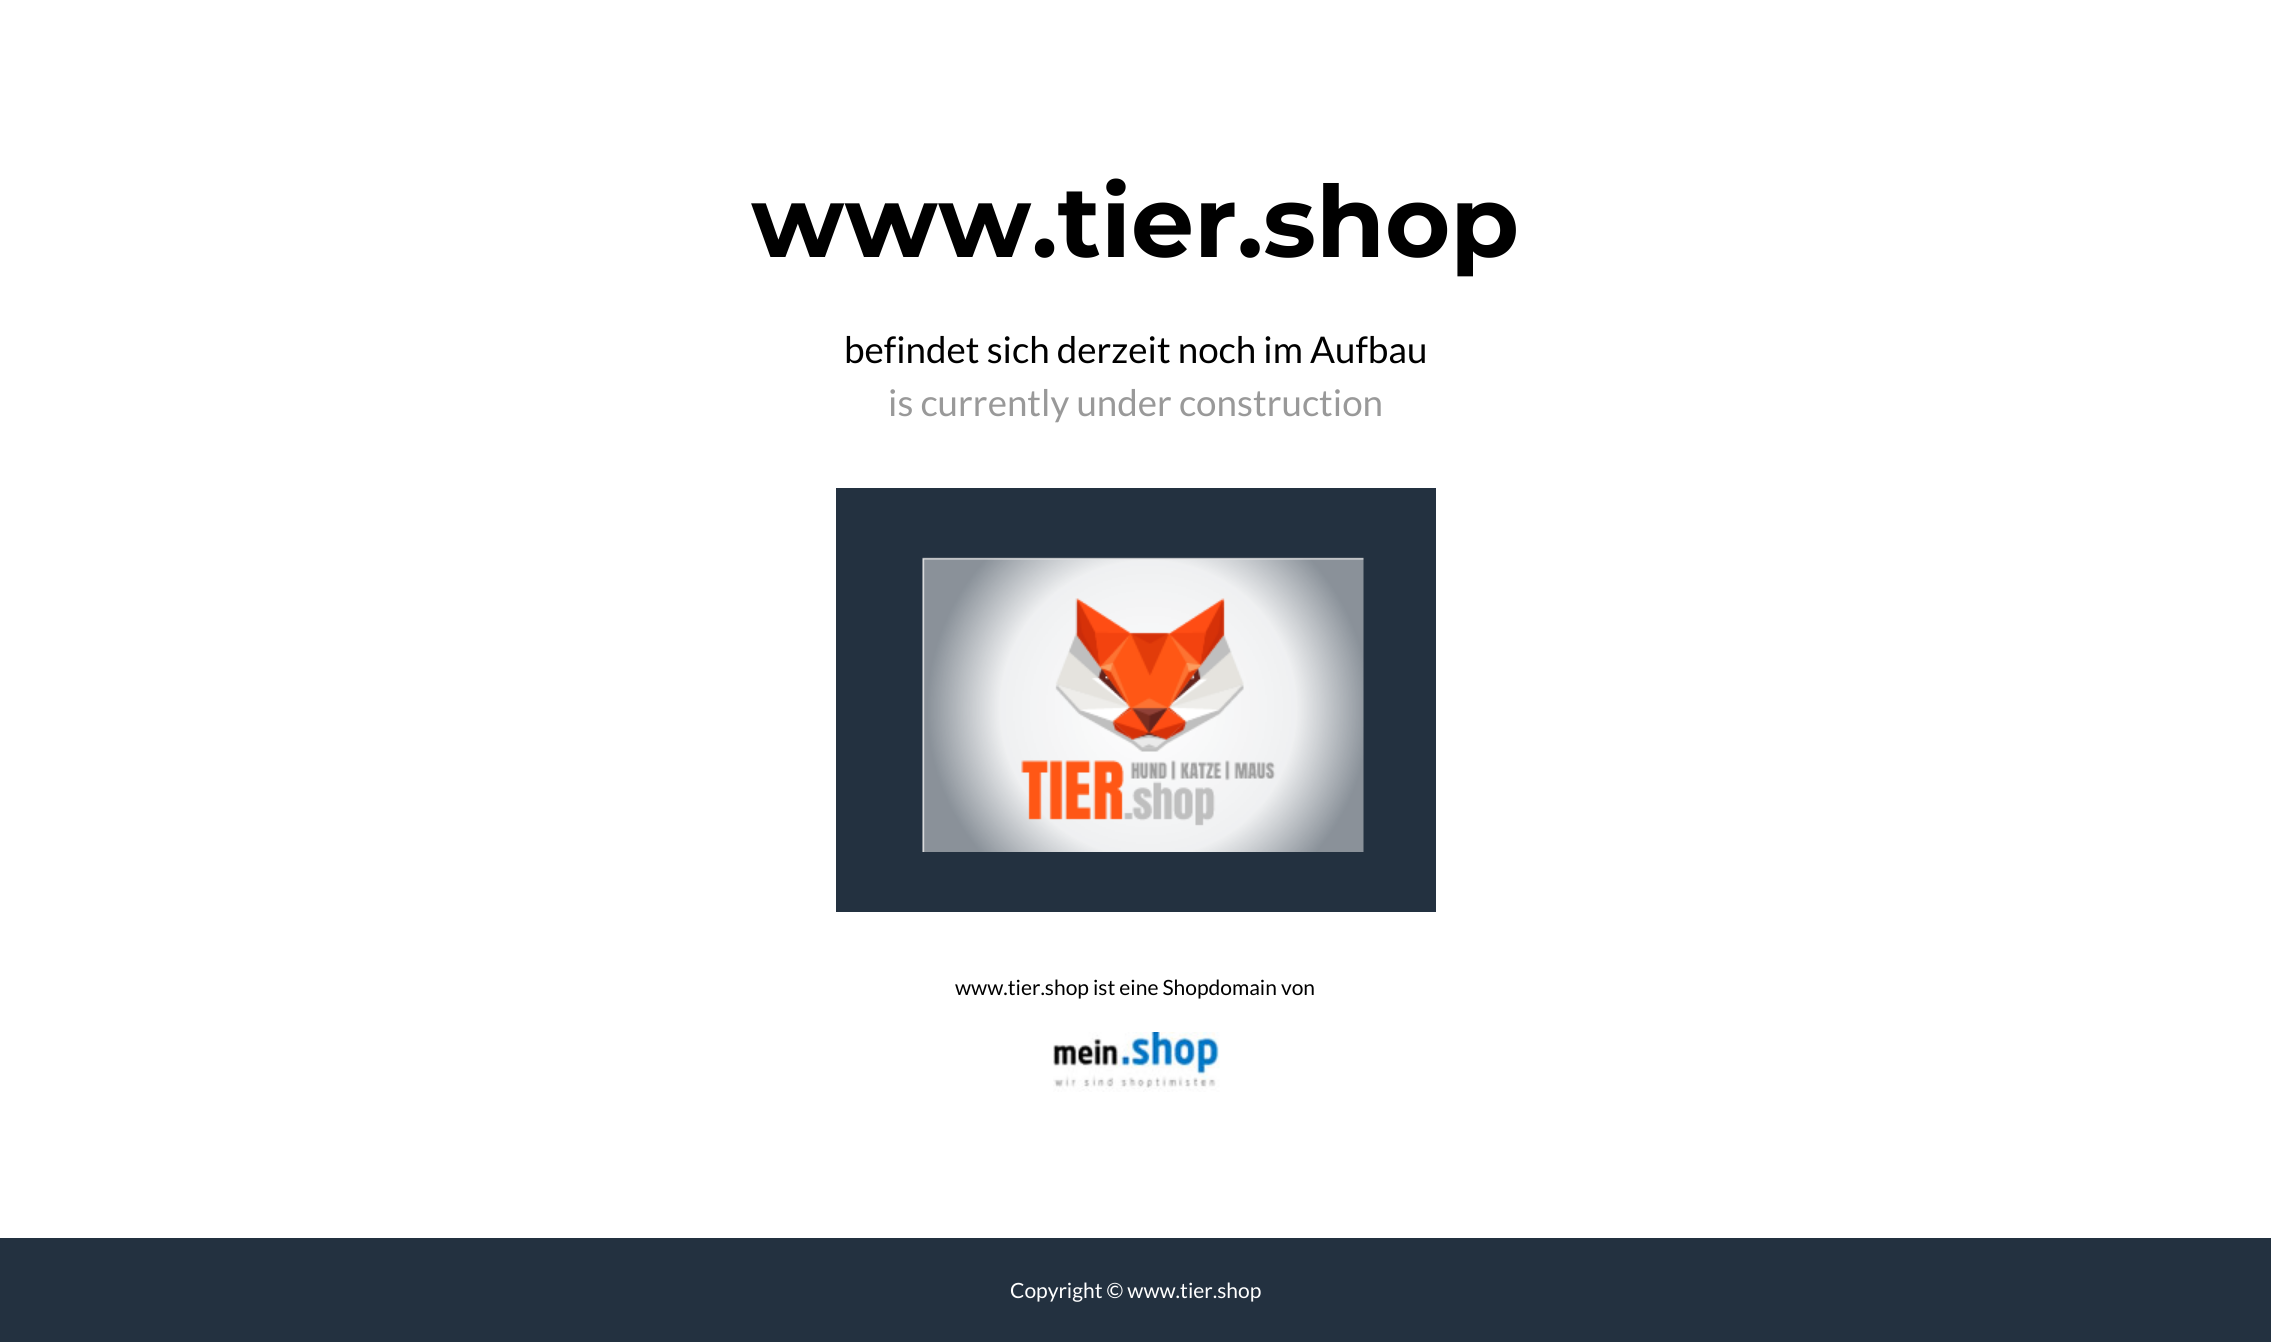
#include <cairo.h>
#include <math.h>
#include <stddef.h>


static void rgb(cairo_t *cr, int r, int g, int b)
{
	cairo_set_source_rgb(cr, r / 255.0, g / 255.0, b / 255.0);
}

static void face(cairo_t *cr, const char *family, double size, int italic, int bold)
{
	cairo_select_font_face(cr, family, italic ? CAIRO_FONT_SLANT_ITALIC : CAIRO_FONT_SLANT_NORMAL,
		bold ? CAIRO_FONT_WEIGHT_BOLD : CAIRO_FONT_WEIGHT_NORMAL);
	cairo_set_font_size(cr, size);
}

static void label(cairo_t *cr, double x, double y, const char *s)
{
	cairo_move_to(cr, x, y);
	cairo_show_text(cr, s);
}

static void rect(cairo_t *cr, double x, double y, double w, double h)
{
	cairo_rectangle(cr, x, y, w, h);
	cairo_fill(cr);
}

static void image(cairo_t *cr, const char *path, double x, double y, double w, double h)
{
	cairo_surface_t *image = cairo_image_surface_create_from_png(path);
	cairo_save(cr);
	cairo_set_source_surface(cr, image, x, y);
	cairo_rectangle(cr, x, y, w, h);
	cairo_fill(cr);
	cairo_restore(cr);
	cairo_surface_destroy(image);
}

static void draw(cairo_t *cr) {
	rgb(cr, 255, 255, 255);
	cairo_paint(cr);
	face(cr, "Montserrat", 99.75, 0, 1);
	rgb(cr, 0, 0, 0);
	label(cr, 751, 257, "www.tier.shop");
	face(cr, "Lato", 36.75, 0, 0);
	label(cr, 844, 363, "befindet sich derzeit noch im Aufbau");
	rgb(cr, 153, 153, 153);
	label(cr, 888, 416, "is currently under construction");
	rgb(cr, 35, 49, 64);
	rect(cr, 836, 488, 600, 424);
	image(cr, "image0.png", 922, 557, 442, 295);
	face(cr, "Lato", 21, 0, 0);
	rgb(cr, 0, 0, 0);
	label(cr, 955, 995, "www.tier.shop ist eine Shopdomain von");
	image(cr, "image1.png", 1053, 1032, 167, 60);
	rgb(cr, 35, 49, 64);
	rect(cr, 0, 1238, 2271, 104);
	rgb(cr, 255, 255, 255);
	label(cr, 1010, 1298, "Copyright © www.tier.shop");
}

int main(void) {
	cairo_surface_t *surface = cairo_image_surface_create(CAIRO_FORMAT_RGB24, 2271, 1342);
	cairo_t *cr = cairo_create(surface);
	cairo_font_options_t *options = cairo_font_options_create();
	cairo_font_options_set_hint_metrics(options, CAIRO_HINT_METRICS_OFF);
	cairo_font_options_set_hint_style(options, CAIRO_HINT_STYLE_NONE);
	cairo_set_font_options(cr, options);
	cairo_set_miter_limit(cr, 4);
	draw(cr);
	cairo_surface_write_to_png(surface, "render.png");
	cairo_font_options_destroy(options);
	cairo_destroy(cr);
	cairo_surface_destroy(surface);
	return 0;
}
